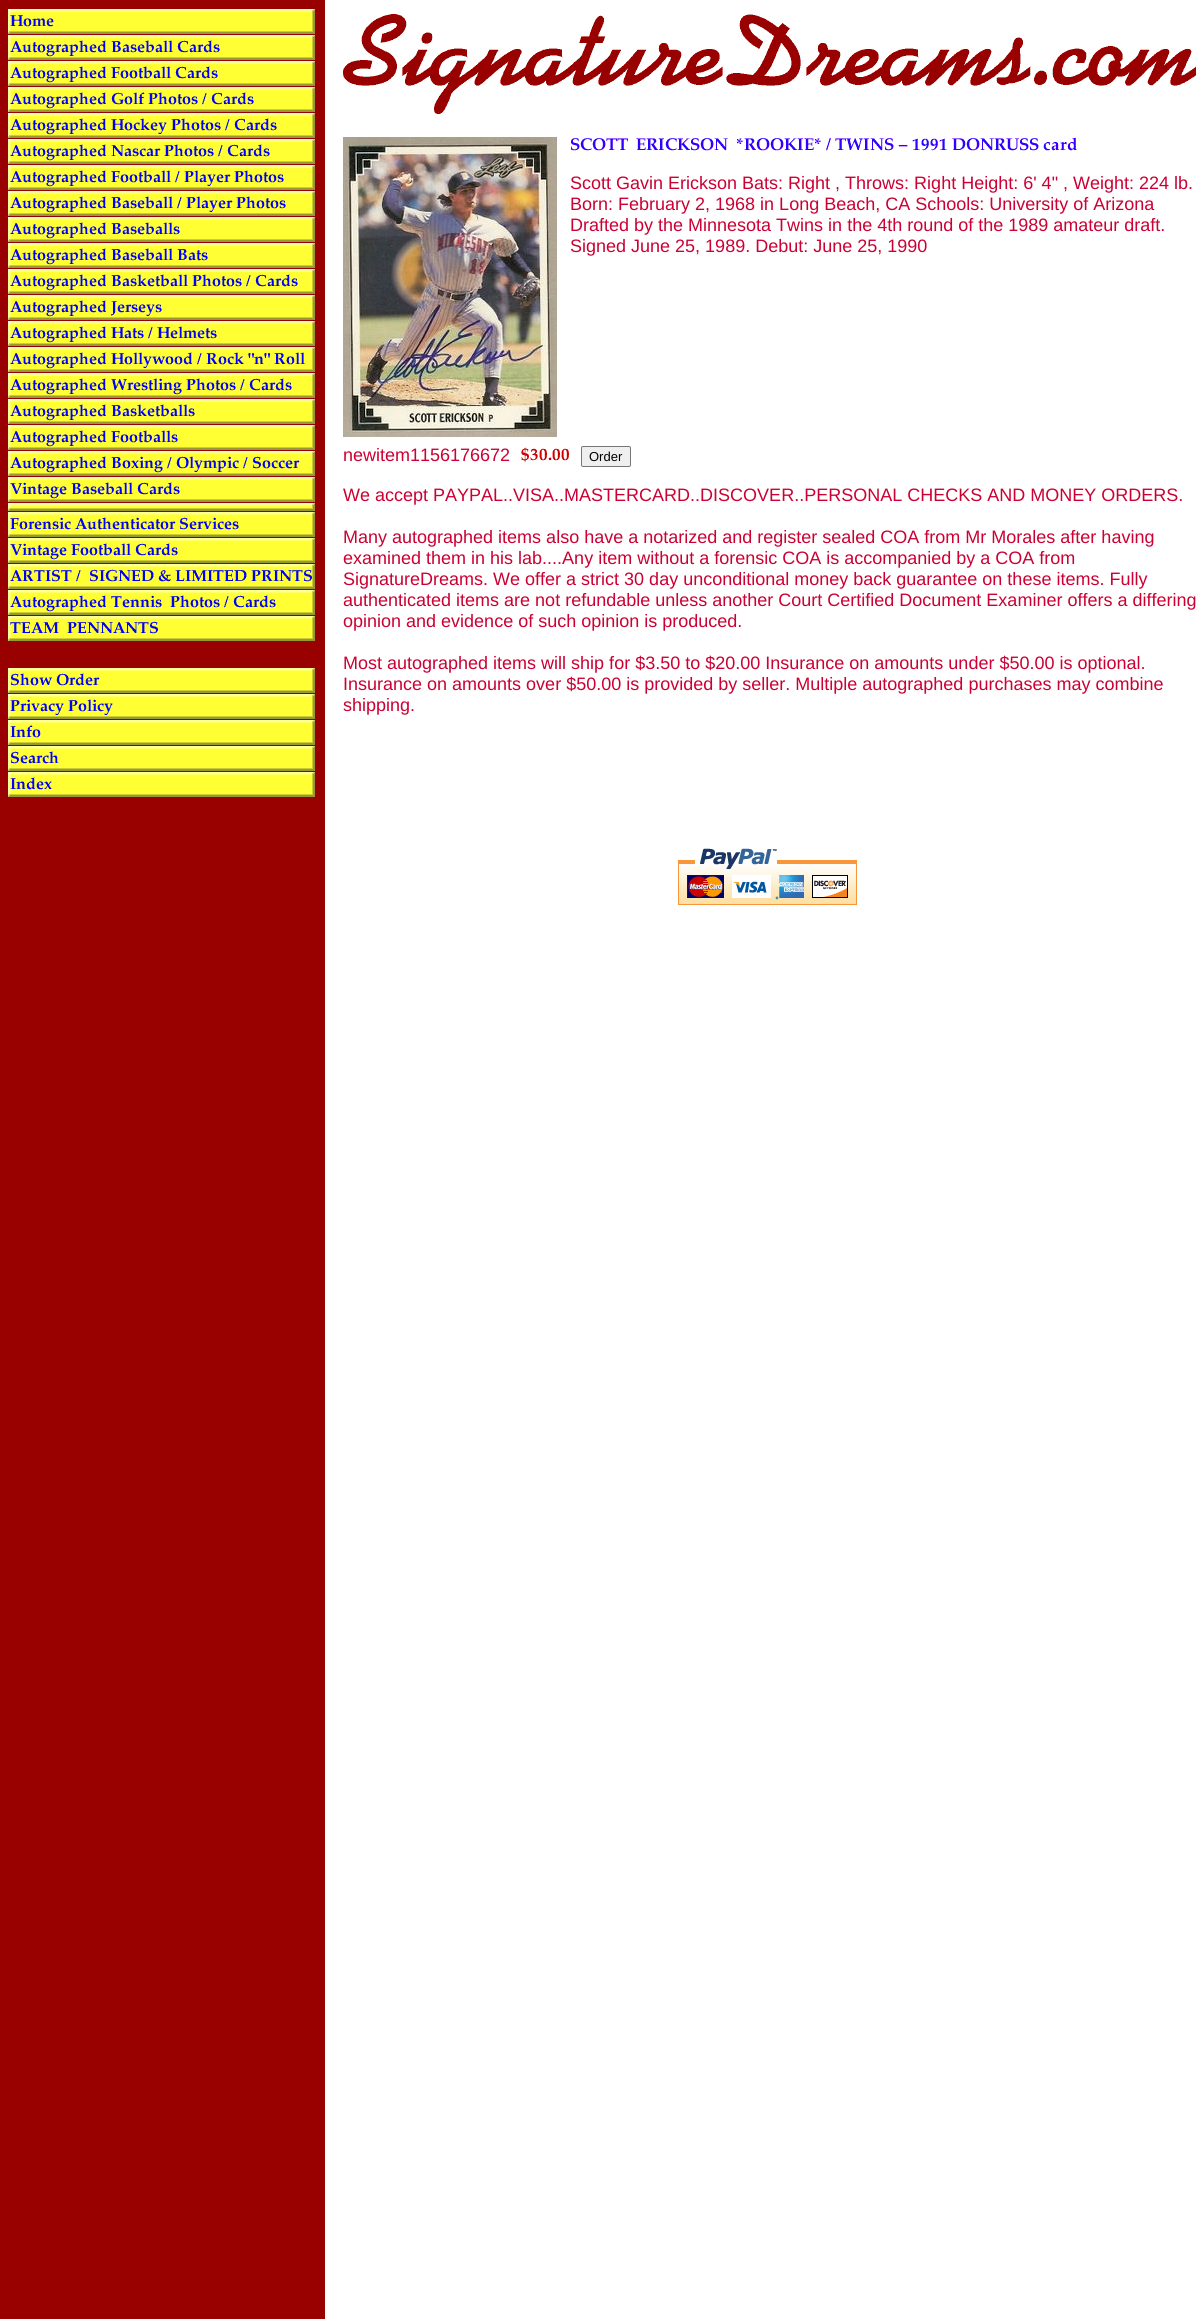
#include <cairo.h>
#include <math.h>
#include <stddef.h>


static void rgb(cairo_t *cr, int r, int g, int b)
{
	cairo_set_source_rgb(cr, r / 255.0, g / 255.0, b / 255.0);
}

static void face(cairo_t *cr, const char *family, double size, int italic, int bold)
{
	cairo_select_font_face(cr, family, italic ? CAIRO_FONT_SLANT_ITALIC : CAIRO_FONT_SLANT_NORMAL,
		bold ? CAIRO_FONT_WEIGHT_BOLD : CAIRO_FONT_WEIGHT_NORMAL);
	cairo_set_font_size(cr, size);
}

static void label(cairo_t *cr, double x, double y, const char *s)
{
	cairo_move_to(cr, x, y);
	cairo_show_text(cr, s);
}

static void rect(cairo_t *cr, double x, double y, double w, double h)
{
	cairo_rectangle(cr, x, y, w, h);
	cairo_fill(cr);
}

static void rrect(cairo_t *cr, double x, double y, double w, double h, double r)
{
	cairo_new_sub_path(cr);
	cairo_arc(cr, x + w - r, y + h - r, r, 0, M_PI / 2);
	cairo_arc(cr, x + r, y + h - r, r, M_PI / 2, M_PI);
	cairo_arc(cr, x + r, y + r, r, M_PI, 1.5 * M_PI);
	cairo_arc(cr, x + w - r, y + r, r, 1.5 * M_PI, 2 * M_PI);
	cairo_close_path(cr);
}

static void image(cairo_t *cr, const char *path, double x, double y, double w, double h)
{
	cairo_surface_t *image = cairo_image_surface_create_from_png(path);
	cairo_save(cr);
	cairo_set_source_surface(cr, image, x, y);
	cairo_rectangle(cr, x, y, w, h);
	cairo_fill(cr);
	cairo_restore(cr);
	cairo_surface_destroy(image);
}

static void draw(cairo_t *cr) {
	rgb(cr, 255, 255, 255);
	cairo_paint(cr);
	rgb(cr, 153, 0, 0);
	rect(cr, 0, 0, 325, 2319);
	image(cr, "image0.png", 8, 9, 307, 788);
	image(cr, "image1.png", 343, 14, 853, 100);
	image(cr, "image2.png", 343, 137, 214, 300);
	image(cr, "image3.png", 571, 137, 506, 14);
	face(cr, "Liberation Sans", 18, 0, 0);
	rgb(cr, 204, 0, 51);
	label(cr, 570, 189, "Scott Gavin Erickson Bats: Right , Throws: Right Height: 6' 4\" , Weight: 224 lb.");
	label(cr, 570, 210, "Born: February 2, 1968 in Long Beach, CA Schools: University of Arizona");
	label(cr, 570, 231, "Drafted by the Minnesota Twins in the 4th round of the 1989 amateur draft.");
	label(cr, 570, 252, "Signed June 25, 1989. Debut: June 25, 1990");
	label(cr, 343, 461, "newitem1156176672");
	image(cr, "image4.png", 521, 447, 48, 15);
	rgb(cr, 239, 239, 239);
	rrect(cr, 581.5, 446.5, 49, 20, 1.5);
	cairo_fill_preserve(cr);
	rgb(cr, 118, 118, 118);
	cairo_set_line_width(cr, 1);
	cairo_stroke(cr);
	face(cr, "Liberation Sans", 13, 0, 0);
	rgb(cr, 0, 0, 0);
	label(cr, 589, 461, "Order");
	face(cr, "Liberation Sans", 18, 0, 0);
	rgb(cr, 204, 0, 51);
	label(cr, 343, 501, "We accept PAYPAL..VISA..MASTERCARD..DISCOVER..PERSONAL CHECKS AND MONEY ORDERS.");
	label(cr, 343, 543, "Many autographed items also have a notarized and register sealed COA from Mr Morales after having");
	label(cr, 343, 564, "examined them in his lab....Any item without a forensic COA is accompanied by a COA from");
	label(cr, 343, 585, "SignatureDreams. We offer a strict 30 day unconditional money back guarantee on these items. Fully");
	label(cr, 343, 606, "authenticated items are not refundable unless another Court Certified Document Examiner offers a differing");
	label(cr, 343, 627, "opinion and evidence of such opinion is produced.");
	label(cr, 343, 669, "Most autographed items will ship for $3.50 to $20.00 Insurance on amounts under $50.00 is optional.");
	label(cr, 343, 690, "Insurance on amounts over $50.00 is provided by seller. Multiple autographed purchases may combine");
	label(cr, 343, 711, "shipping.");
	image(cr, "image5.png", 678, 848, 179, 57);
}

int main(void) {
	cairo_surface_t *surface = cairo_image_surface_create(CAIRO_FORMAT_RGB24, 1196, 2319);
	cairo_t *cr = cairo_create(surface);
	cairo_font_options_t *options = cairo_font_options_create();
	cairo_font_options_set_hint_metrics(options, CAIRO_HINT_METRICS_OFF);
	cairo_font_options_set_hint_style(options, CAIRO_HINT_STYLE_NONE);
	cairo_set_font_options(cr, options);
	cairo_set_miter_limit(cr, 4);
	draw(cr);
	cairo_surface_write_to_png(surface, "render.png");
	cairo_font_options_destroy(options);
	cairo_destroy(cr);
	cairo_surface_destroy(surface);
	return 0;
}
